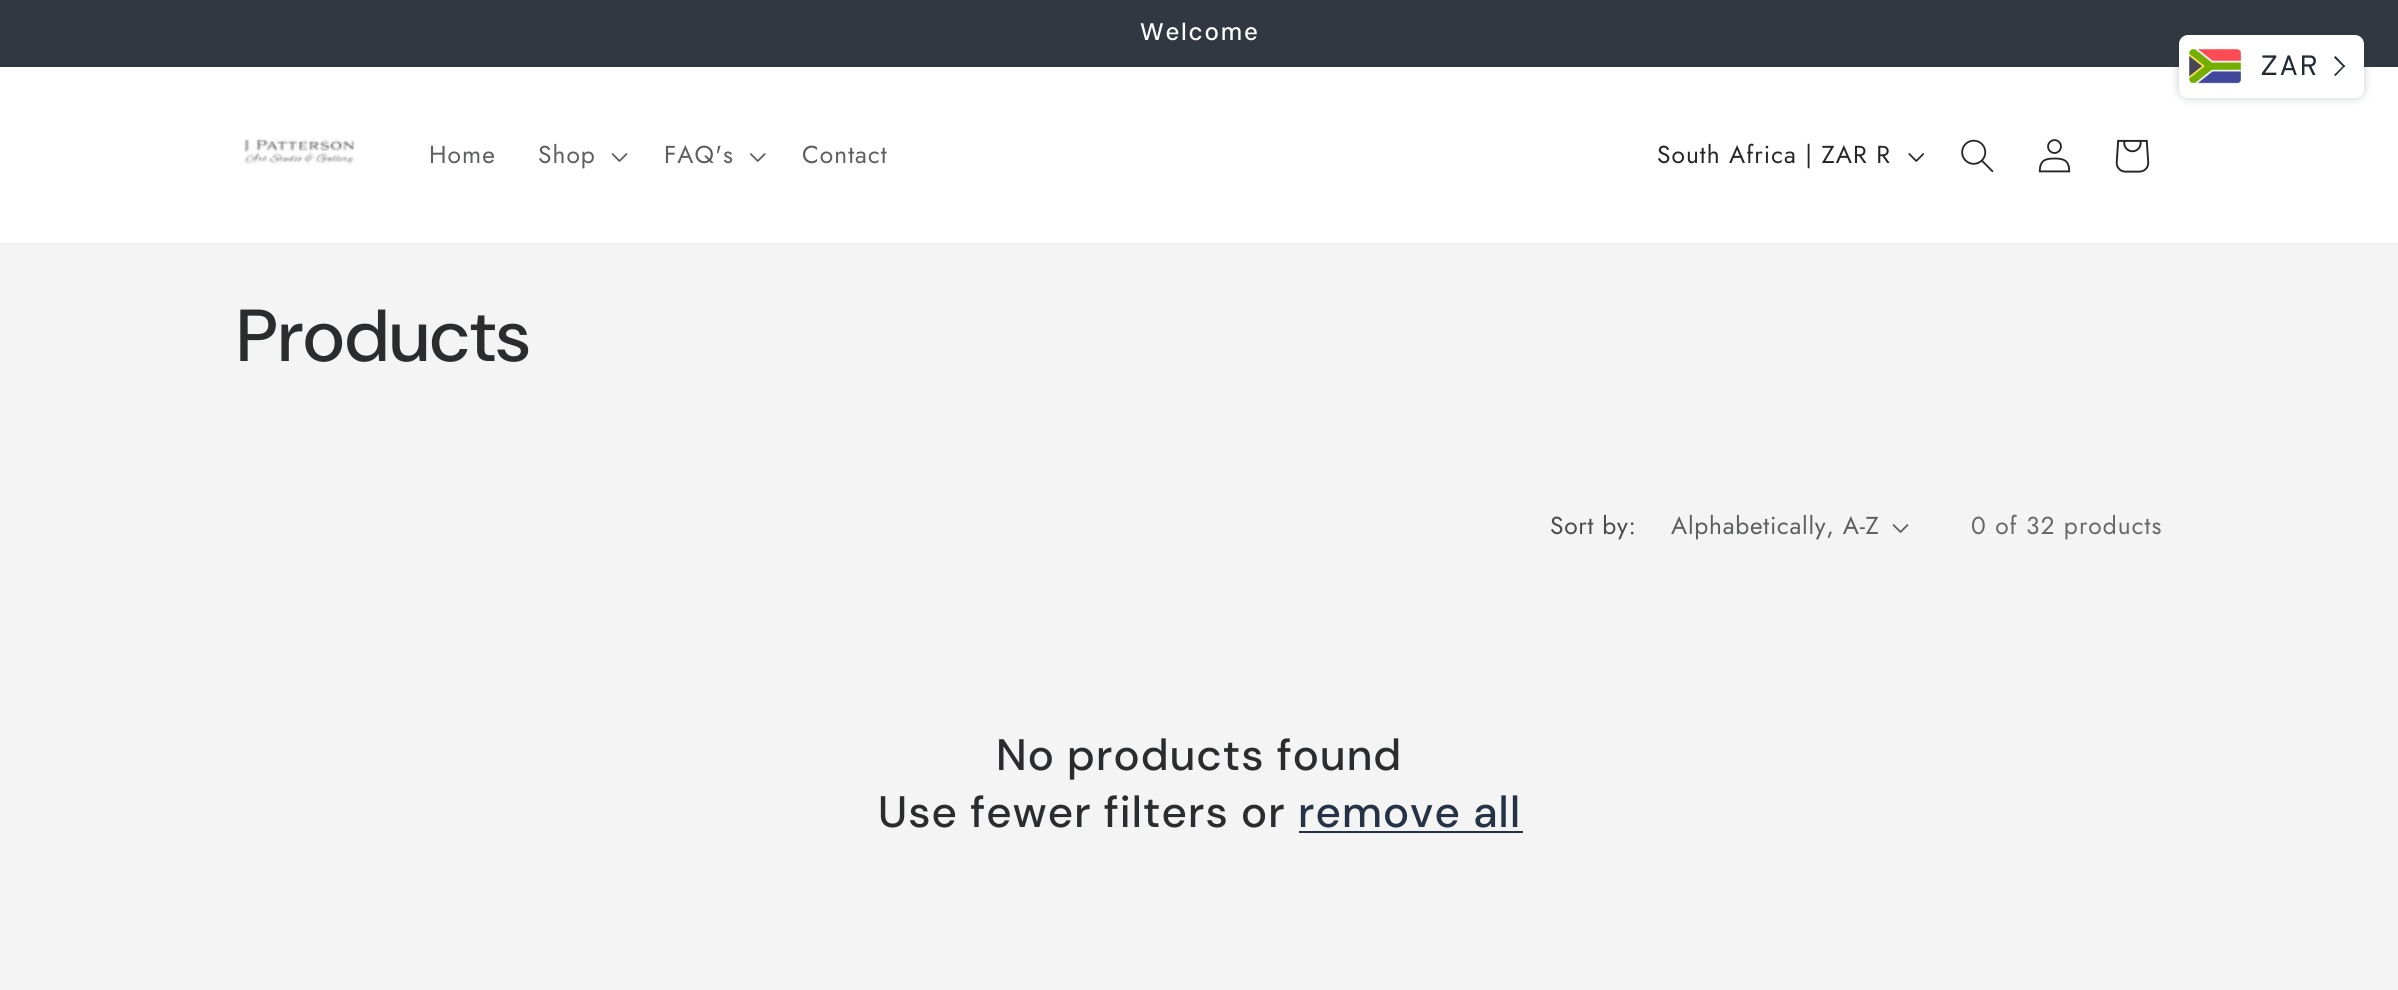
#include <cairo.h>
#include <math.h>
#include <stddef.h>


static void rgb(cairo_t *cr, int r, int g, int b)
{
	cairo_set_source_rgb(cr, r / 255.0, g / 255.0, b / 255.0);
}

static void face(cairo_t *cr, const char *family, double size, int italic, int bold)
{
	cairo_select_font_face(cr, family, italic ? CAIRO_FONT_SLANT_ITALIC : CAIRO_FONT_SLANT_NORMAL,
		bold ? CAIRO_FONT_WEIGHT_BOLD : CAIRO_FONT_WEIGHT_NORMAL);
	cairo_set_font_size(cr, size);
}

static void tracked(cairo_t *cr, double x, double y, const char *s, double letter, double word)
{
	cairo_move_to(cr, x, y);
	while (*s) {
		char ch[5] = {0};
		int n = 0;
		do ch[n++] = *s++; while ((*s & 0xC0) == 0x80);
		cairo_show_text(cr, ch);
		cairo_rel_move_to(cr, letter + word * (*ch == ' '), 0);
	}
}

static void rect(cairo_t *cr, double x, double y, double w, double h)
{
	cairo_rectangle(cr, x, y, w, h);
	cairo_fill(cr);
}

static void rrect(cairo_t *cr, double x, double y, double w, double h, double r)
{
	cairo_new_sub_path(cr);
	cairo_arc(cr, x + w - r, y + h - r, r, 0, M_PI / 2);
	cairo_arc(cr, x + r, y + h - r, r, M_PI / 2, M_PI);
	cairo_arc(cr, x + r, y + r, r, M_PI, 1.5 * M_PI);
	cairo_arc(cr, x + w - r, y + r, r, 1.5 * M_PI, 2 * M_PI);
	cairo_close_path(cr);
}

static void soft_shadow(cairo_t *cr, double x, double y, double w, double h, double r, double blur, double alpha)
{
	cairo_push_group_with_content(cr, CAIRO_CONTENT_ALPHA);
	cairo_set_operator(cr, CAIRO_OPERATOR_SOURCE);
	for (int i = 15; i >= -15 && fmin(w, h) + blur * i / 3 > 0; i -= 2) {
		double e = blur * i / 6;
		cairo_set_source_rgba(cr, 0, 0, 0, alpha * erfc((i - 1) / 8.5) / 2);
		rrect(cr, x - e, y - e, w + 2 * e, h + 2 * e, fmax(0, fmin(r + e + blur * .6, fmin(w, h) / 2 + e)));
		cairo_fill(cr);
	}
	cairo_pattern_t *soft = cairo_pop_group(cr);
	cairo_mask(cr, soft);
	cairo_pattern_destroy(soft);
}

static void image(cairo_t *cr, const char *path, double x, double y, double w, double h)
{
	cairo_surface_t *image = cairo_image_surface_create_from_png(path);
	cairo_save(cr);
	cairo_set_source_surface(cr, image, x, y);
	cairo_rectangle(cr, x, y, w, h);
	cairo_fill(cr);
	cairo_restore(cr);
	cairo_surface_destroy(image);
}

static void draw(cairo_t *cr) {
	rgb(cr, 244, 244, 244);
	cairo_paint(cr);
	rgb(cr, 50, 56, 65);
	rect(cr, 0, 0, 2398, 67);
	face(cr, "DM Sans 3 Medium", 24, 0, 0);
	rgb(cr, 255, 255, 255);
	tracked(cr, 1140, 40, "Welcome", 1.75, 0);
	rect(cr, 0, 67, 2398, 176);
	rgb(cr, 33, 43, 54);
	soft_shadow(cr, 2179, 35, 185, 63, 9, 4.5, 0.25);
	rgb(cr, 255, 255, 255);
	rrect(cr, 2179, 35, 185, 63, 9);
	cairo_fill(cr);
	image(cr, "image0.png", 2189, 49, 52, 35);
	face(cr, "Overpass", 28, 0, 0);
	rgb(cr, 33, 43, 54);
	tracked(cr, 2260, 75, "ZAR", 1.05, 0);
	cairo_new_path(cr);
	cairo_move_to(cr, 2334, 57.5);
	cairo_line_to(cr, 2335.5, 56);
	cairo_line_to(cr, 2345, 66);
	cairo_line_to(cr, 2344, 67.5);
	cairo_close_path(cr);
	cairo_fill(cr);
	cairo_new_path(cr);
	cairo_move_to(cr, 2334, 75);
	cairo_line_to(cr, 2344, 65);
	cairo_line_to(cr, 2345, 66);
	cairo_line_to(cr, 2335.5, 76);
	cairo_close_path(cr);
	cairo_fill(cr);
	rgb(cr, 238, 238, 238);
	rect(cr, 0, 243, 2398, 2);
	image(cr, "image1.png", 244, 137, 113, 28);
	face(cr, "Jost", 24.5, 0, 0);
	rgb(cr, 93, 94, 95);
	tracked(cr, 429, 163, "Home", 1.05, 0);
	tracked(cr, 538, 163, "Shop", 1.05, 0);
	image(cr, "image2.png", 611, 153, 17, 9);
	tracked(cr, 664, 163, "FAQ's", 1.05, 0);
	image(cr, "image3.png", 750, 153, 16, 9);
	tracked(cr, 802, 163, "Contact", 1.05, 0);
	rgb(cr, 38, 38, 38);
	tracked(cr, 1657, 163, "South Africa | ZAR R", 1.05, 0);
	image(cr, "image4.png", 1908, 153, 16, 9);
	image(cr, "image5.png", 1961, 139, 33, 34);
	image(cr, "image6.png", 2038, 139, 33, 34);
	image(cr, "image7.png", 2115, 139, 35, 34);
	face(cr, "DM Sans Medium", 73.5, 0, 0);
	rgb(cr, 43, 44, 45);
	tracked(cr, 237, 361, "Products", 1.1, 0);
	face(cr, "Jost", 24.5, 0, 0);
	rgb(cr, 73, 74, 75);
	tracked(cr, 1550, 534, "Sort by:", 0.75, 0);
	rgb(cr, 93, 94, 95);
	tracked(cr, 1671, 534, "Alphabetically, A-Z", 0.75, 0);
	image(cr, "image8.png", 1892, 524, 17, 9);
	rgb(cr, 103, 104, 105);
	tracked(cr, 1971, 534, "0 of 32 products", 1.05, 0);
	face(cr, "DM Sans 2 Medium", 44, 0, 0);
	rgb(cr, 43, 44, 45);
	tracked(cr, 996, 770, "No products found", 1.1, 0);
	tracked(cr, 878, 827, "Use fewer filters or", 1.1, 0);
	rgb(cr, 37, 51, 71);
	tracked(cr, 1298, 827, "remove all", 1.1, 0);
	rect(cr, 1299, 831, 224, 2);
}

int main(void) {
	cairo_surface_t *surface = cairo_image_surface_create(CAIRO_FORMAT_RGB24, 2398, 990);
	cairo_t *cr = cairo_create(surface);
	cairo_font_options_t *options = cairo_font_options_create();
	cairo_font_options_set_hint_metrics(options, CAIRO_HINT_METRICS_OFF);
	cairo_font_options_set_hint_style(options, CAIRO_HINT_STYLE_NONE);
	cairo_set_font_options(cr, options);
	cairo_set_miter_limit(cr, 4);
	draw(cr);
	cairo_surface_write_to_png(surface, "render.png");
	cairo_font_options_destroy(options);
	cairo_destroy(cr);
	cairo_surface_destroy(surface);
	return 0;
}
